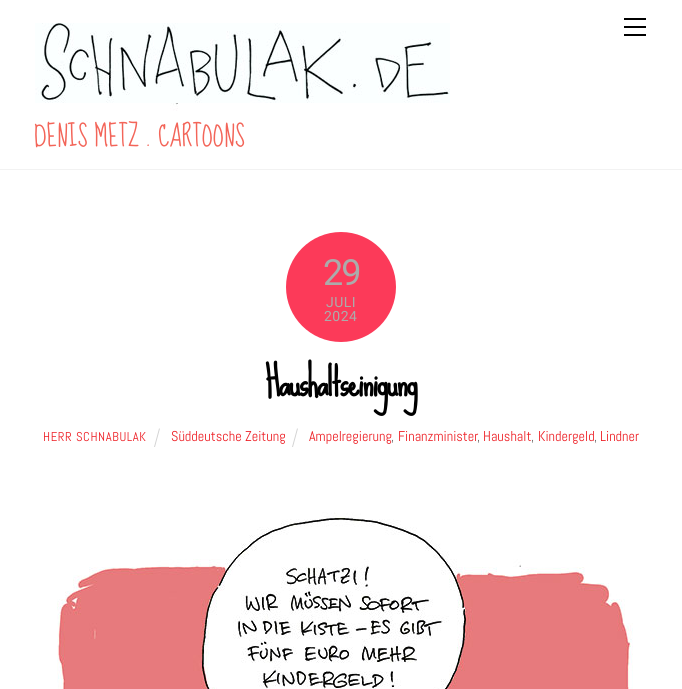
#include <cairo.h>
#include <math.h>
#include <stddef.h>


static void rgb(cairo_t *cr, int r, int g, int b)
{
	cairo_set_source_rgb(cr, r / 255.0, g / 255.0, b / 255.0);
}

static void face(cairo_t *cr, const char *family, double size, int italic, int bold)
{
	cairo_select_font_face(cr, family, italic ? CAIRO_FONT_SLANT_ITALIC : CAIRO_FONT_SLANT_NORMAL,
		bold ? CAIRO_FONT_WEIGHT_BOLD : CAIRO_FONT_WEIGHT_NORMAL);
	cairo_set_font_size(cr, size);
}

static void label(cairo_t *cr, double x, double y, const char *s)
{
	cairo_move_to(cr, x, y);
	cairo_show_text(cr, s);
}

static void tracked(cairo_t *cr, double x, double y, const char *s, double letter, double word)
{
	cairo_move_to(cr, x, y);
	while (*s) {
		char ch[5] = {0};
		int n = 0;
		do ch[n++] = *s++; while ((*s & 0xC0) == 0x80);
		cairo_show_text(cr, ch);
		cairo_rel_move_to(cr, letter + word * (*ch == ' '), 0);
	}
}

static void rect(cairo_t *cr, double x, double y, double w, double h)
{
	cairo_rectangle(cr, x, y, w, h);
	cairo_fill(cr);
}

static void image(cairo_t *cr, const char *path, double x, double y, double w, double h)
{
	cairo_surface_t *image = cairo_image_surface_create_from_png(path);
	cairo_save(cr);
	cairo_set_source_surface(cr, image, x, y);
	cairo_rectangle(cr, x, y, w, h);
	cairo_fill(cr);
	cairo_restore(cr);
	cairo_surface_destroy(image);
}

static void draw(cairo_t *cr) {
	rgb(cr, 255, 255, 255);
	cairo_paint(cr);
	rgb(cr, 242, 242, 242);
	rect(cr, 0, 169, 682, 1);
	rgb(cr, 0, 0, 0);
	rect(cr, 624, 34, 22, 2);
	rect(cr, 624, 18, 22, 2);
	rect(cr, 624, 26, 22, 2);
	image(cr, "image0.png", 35, 23, 415, 88);
	face(cr, "Sue Ellen Francisco", 26, 0, 0);
	rgb(cr, 243, 101, 89);
	label(cr, 34, 146, "DENIS METZ . CARTOONS");
	rgb(cr, 252, 58, 89);
	cairo_new_path(cr);
	cairo_arc(cr, 341, 287, 55, 0, 2 * M_PI);
	cairo_fill(cr);
	face(cr, "Roboto", 36, 0, 0);
	rgb(cr, 171, 171, 171);
	tracked(cr, 323, 285, "29", -2, 0);
	face(cr, "Roboto", 14, 0, 0);
	tracked(cr, 326, 307, "JULI", 0.5, 0);
	tracked(cr, 324, 321, "2024", 0.5, 0);
	face(cr, "Sue Ellen Francisco", 37.5, 0, 1);
	rgb(cr, 0, 0, 0);
	tracked(cr, 265, 396, "Haushaltseinigung", -1.5, 0);
	face(cr, "Abel", 12.75, 0, 0);
	rgb(cr, 237, 30, 36);
	tracked(cr, 43, 441, "HERR SCHNABULAK", 0.6, 0);
	rgb(cr, 211, 211, 211);
	cairo_new_path(cr);
	cairo_move_to(cr, 159, 428.5);
	cairo_line_to(cr, 160, 428.5);
	cairo_line_to(cr, 155, 447);
	cairo_line_to(cr, 154, 447);
	cairo_close_path(cr);
	cairo_fill(cr);
	face(cr, "Abel", 14.25, 0, 0);
	rgb(cr, 237, 30, 36);
	label(cr, 171, 441, "Süddeutsche Zeitung");
	rgb(cr, 211, 211, 211);
	cairo_new_path(cr);
	cairo_move_to(cr, 297, 428.5);
	cairo_line_to(cr, 298, 428.5);
	cairo_line_to(cr, 293, 447);
	cairo_line_to(cr, 292, 447);
	cairo_close_path(cr);
	cairo_fill(cr);
	rgb(cr, 237, 30, 36);
	label(cr, 309, 441, "Ampelregierung");
	rgb(cr, 102, 102, 102);
	label(cr, 391, 441, ",");
	rgb(cr, 237, 30, 36);
	label(cr, 398, 441, "Finanzminister");
	rgb(cr, 102, 102, 102);
	label(cr, 477, 441, ",");
	rgb(cr, 237, 30, 36);
	label(cr, 483, 441, "Haushalt");
	rgb(cr, 102, 102, 102);
	label(cr, 531, 441, ",");
	rgb(cr, 237, 30, 36);
	label(cr, 538, 441, "Kindergeld");
	rgb(cr, 102, 102, 102);
	label(cr, 594, 441, ",");
	rgb(cr, 237, 30, 36);
	label(cr, 600, 441, "Lindner");
	image(cr, "image1.png", 57, 512, 576, 177);
}

int main(void) {
	cairo_surface_t *surface = cairo_image_surface_create(CAIRO_FORMAT_RGB24, 682, 689);
	cairo_t *cr = cairo_create(surface);
	cairo_font_options_t *options = cairo_font_options_create();
	cairo_font_options_set_hint_metrics(options, CAIRO_HINT_METRICS_OFF);
	cairo_font_options_set_hint_style(options, CAIRO_HINT_STYLE_NONE);
	cairo_set_font_options(cr, options);
	cairo_set_miter_limit(cr, 4);
	draw(cr);
	cairo_surface_write_to_png(surface, "render.png");
	cairo_font_options_destroy(options);
	cairo_destroy(cr);
	cairo_surface_destroy(surface);
	return 0;
}
